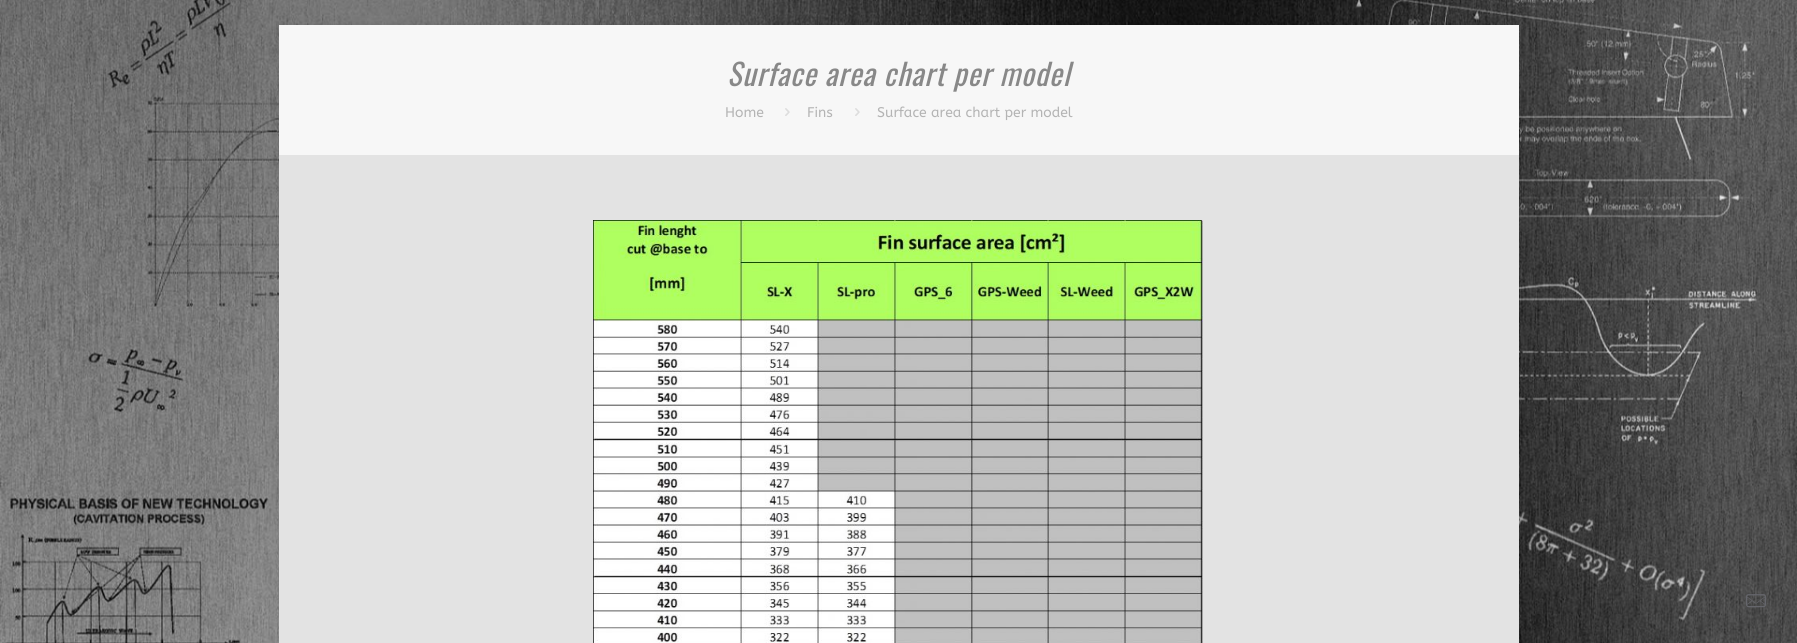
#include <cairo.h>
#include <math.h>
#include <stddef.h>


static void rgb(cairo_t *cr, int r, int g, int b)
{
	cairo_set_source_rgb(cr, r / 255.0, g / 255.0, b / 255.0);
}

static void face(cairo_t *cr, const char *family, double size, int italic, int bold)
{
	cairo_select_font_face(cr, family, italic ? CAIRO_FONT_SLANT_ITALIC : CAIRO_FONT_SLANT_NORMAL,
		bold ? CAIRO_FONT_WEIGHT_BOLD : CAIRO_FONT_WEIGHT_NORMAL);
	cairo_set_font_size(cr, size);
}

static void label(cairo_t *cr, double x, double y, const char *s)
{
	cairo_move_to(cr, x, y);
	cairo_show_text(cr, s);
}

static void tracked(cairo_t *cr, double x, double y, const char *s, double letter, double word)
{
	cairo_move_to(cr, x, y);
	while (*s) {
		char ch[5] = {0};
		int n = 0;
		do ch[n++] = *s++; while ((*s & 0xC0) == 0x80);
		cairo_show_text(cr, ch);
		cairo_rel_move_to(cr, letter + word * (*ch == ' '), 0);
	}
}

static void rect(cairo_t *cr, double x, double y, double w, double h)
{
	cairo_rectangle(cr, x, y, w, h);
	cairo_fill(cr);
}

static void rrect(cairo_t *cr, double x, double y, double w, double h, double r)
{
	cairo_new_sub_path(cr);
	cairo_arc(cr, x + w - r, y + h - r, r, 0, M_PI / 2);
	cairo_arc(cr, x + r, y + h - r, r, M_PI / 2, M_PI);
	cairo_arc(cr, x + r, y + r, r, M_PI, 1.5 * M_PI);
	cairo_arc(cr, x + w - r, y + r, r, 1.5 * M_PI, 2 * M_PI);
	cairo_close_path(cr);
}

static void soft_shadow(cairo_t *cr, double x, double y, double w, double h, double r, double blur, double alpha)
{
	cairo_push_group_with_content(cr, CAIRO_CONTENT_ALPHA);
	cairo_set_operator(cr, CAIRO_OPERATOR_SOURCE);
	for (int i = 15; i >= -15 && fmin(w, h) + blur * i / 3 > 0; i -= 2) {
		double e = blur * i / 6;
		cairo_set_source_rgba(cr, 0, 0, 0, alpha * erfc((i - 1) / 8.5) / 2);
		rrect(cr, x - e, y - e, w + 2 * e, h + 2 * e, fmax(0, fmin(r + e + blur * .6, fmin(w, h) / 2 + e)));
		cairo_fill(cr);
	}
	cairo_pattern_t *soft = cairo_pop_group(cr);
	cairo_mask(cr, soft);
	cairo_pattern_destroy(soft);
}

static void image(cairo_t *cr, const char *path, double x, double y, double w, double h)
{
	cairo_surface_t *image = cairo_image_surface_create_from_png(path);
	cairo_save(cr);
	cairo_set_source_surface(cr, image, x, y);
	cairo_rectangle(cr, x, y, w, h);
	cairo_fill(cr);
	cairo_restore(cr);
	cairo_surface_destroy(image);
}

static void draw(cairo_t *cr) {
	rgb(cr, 255, 255, 255);
	cairo_paint(cr);
	image(cr, "image0.png", 0, 0, 1797, 643);
	rgb(cr, 0, 0, 0);
	soft_shadow(cr, 279, 25, 1240, 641, 0, 7.5, 0.06);
	rgb(cr, 227, 227, 227);
	rect(cr, 279, 155, 1240, 488);
	rgb(cr, 247, 247, 247);
	rect(cr, 279, 25, 1240, 130);
	face(cr, "Oswald", 30, 1, 0);
	rgb(cr, 136, 136, 136);
	tracked(cr, 727, 86, "Surface area chart per model", 1, 0);
	face(cr, "ABeeZee", 14, 0, 0);
	rgb(cr, 180, 180, 180);
	label(cr, 725, 117, "Home");
	image(cr, "image1.png", 785, 108, 5, 8);
	label(cr, 807, 117, "Fins");
	image(cr, "image1.png", 855, 108, 5, 8);
	label(cr, 877, 117, "Surface area chart per model");
	image(cr, "image2.png", 593, 220, 610, 423);
	image(cr, "image3.png", 1746, 594, 20, 14);
}

int main(void) {
	cairo_surface_t *surface = cairo_image_surface_create(CAIRO_FORMAT_RGB24, 1797, 643);
	cairo_t *cr = cairo_create(surface);
	cairo_font_options_t *options = cairo_font_options_create();
	cairo_font_options_set_hint_metrics(options, CAIRO_HINT_METRICS_OFF);
	cairo_font_options_set_hint_style(options, CAIRO_HINT_STYLE_NONE);
	cairo_set_font_options(cr, options);
	cairo_set_miter_limit(cr, 4);
	draw(cr);
	cairo_surface_write_to_png(surface, "render.png");
	cairo_font_options_destroy(options);
	cairo_destroy(cr);
	cairo_surface_destroy(surface);
	return 0;
}
